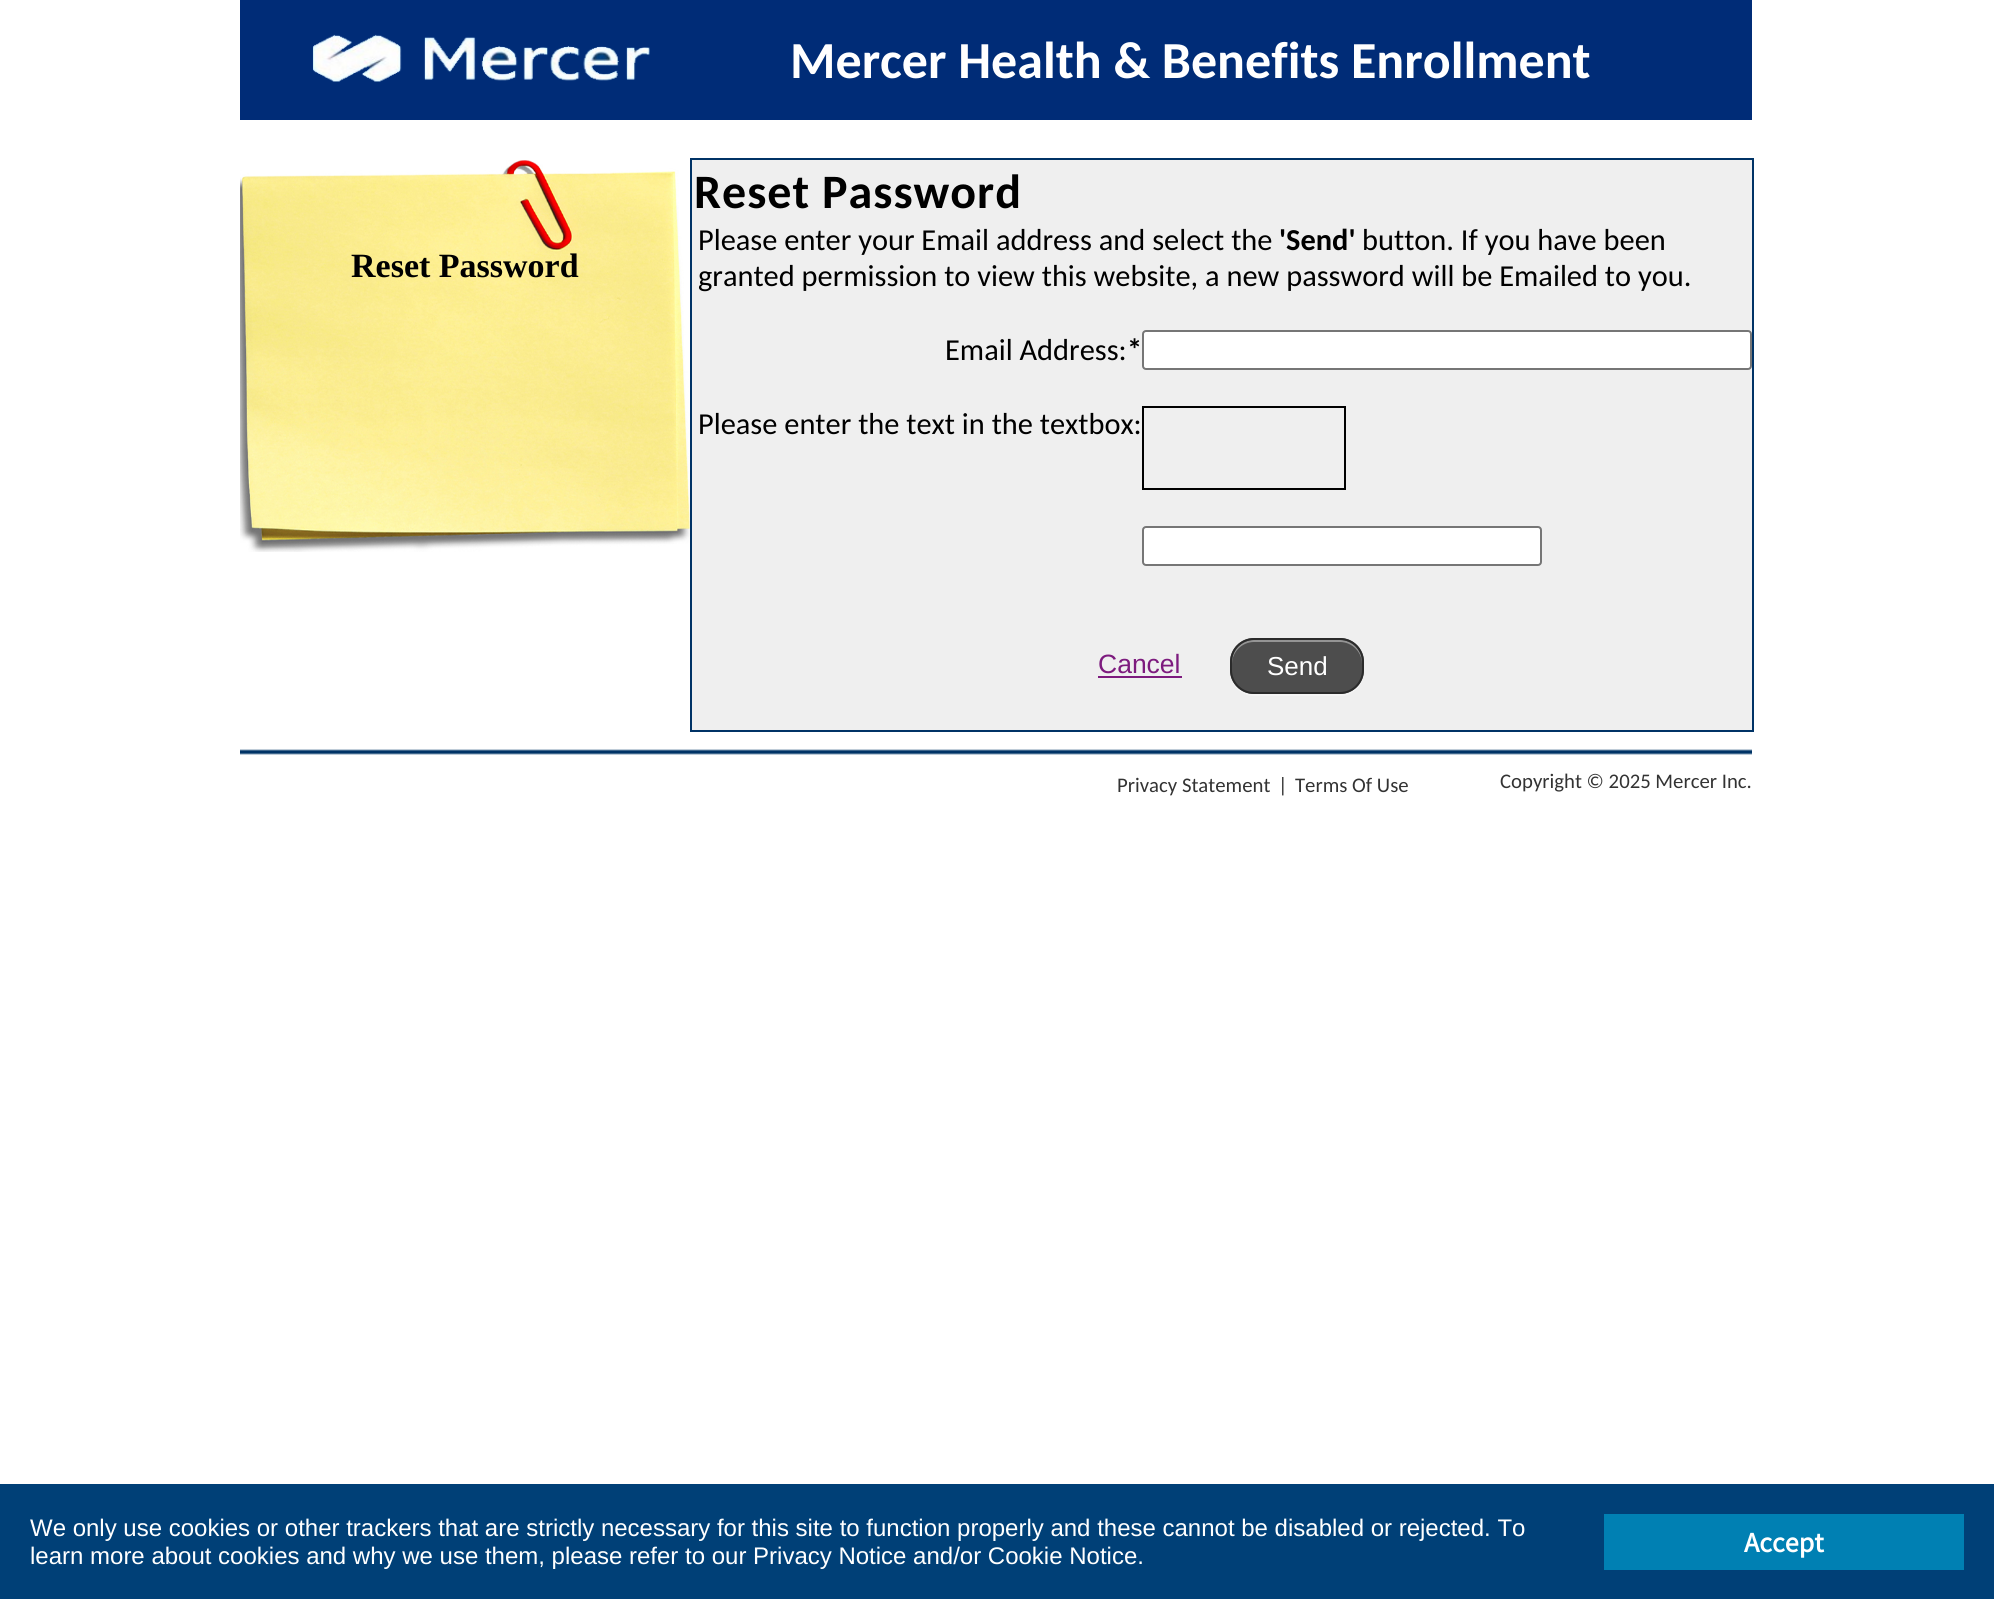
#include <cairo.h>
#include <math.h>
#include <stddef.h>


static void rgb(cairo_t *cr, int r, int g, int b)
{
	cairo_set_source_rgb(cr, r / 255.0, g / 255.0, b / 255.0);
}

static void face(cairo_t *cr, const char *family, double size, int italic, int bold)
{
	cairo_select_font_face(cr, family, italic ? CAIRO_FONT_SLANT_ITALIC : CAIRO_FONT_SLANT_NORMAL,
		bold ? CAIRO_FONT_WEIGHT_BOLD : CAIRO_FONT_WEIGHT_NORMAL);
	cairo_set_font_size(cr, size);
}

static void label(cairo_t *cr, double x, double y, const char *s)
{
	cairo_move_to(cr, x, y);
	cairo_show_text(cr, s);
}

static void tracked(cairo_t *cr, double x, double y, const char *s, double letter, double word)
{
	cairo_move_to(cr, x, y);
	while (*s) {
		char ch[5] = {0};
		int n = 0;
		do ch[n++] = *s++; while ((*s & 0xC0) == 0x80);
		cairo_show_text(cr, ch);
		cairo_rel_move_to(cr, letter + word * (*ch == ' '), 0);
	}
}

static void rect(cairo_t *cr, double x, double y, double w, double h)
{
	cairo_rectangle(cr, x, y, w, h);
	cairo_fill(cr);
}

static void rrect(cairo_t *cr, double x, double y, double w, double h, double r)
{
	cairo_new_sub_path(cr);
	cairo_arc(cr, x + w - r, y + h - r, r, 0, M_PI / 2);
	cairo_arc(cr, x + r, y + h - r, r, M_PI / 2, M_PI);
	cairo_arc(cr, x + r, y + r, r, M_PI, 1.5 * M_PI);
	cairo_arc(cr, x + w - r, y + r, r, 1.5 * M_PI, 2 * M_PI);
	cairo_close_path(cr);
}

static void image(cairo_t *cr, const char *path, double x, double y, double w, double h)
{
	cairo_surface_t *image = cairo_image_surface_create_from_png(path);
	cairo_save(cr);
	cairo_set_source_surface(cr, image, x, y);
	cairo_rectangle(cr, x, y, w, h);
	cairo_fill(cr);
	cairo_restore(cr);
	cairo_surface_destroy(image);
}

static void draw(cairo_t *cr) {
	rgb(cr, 255, 255, 255);
	cairo_paint(cr);
	rgb(cr, 0, 44, 119);
	rect(cr, 240, 0, 1512, 120);
	image(cr, "image0.png", 312, 34, 338, 48);
	face(cr, "Carlito", 52, 0, 1);
	rgb(cr, 255, 255, 255);
	label(cr, 790, 78, "Mercer Health & Benefits Enrollment");
	image(cr, "image1.png", 240, 160, 450, 392);
	face(cr, "Liberation Serif", 34, 0, 1);
	rgb(cr, 0, 0, 0);
	label(cr, 351, 277, "Reset Password");
	rgb(cr, 239, 239, 239);
	rect(cr, 692, 160, 1060, 570);
	rgb(cr, 0, 51, 102);
	rect(cr, 690, 158, 1064, 2);
	rect(cr, 1752, 158, 2, 574);
	rect(cr, 690, 730, 1064, 2);
	rect(cr, 690, 158, 2, 574);
	face(cr, "Carlito", 48, 0, 1);
	rgb(cr, 0, 0, 0);
	tracked(cr, 694, 208, "Reset Password", 1, 0);
	face(cr, "Carlito", 30.4, 0, 0);
	label(cr, 698, 250, "Please enter your Email address and select the");
	face(cr, "Carlito", 30.4, 0, 1);
	label(cr, 1279, 250, "'Send'");
	face(cr, "Carlito", 30.4, 0, 0);
	label(cr, 1362, 250, "button. If you have been");
	label(cr, 698, 286, "granted permission to view this website, a new password will be Emailed to you.");
	label(cr, 945, 360, "Email Address:");
	face(cr, "Carlito", 30.4, 0, 1);
	label(cr, 1127, 360, "*");
	rgb(cr, 255, 255, 255);
	rrect(cr, 1143, 331, 608, 38, 3);
	cairo_fill_preserve(cr);
	rgb(cr, 118, 118, 118);
	cairo_stroke(cr);
	face(cr, "Carlito", 30.4, 0, 0);
	rgb(cr, 0, 0, 0);
	label(cr, 698, 434, "Please enter the text in the textbox:");
	cairo_rectangle(cr, 1143, 407, 202, 82);
	cairo_stroke(cr);
	rgb(cr, 255, 255, 255);
	rrect(cr, 1143, 527, 398, 38, 3);
	cairo_fill_preserve(cr);
	rgb(cr, 118, 118, 118);
	cairo_stroke(cr);
	face(cr, "Liberation Sans", 26.5, 0, 0);
	rgb(cr, 125, 27, 126);
	label(cr, 1098, 673, "Cancel");
	rect(cr, 1098, 676, 84, 2);
	rgb(cr, 245, 245, 245);
	cairo_new_path(cr);
	cairo_move_to(cr, 1230, 670);
	cairo_line_to(cr, 1230, 672);
	cairo_curve_to(cr, 1230, 685, 1241, 696, 1254, 696);
	cairo_line_to(cr, 1340, 696);
	cairo_curve_to(cr, 1353, 696, 1364, 685, 1364, 672);
	cairo_line_to(cr, 1364, 670);
	cairo_curve_to(cr, 1364, 683, 1353, 694, 1340, 694);
	cairo_line_to(cr, 1254, 694);
	cairo_curve_to(cr, 1241, 694, 1230, 683, 1230, 670);
	cairo_close_path(cr);
	cairo_fill(cr);
	rgb(cr, 77, 77, 77);
	rrect(cr, 1230, 638, 134, 56, 24);
	cairo_fill(cr);
	rgb(cr, 148, 148, 148);
	cairo_new_path(cr);
	cairo_move_to(cr, 1254, 642);
	cairo_line_to(cr, 1340, 642);
	cairo_curve_to(cr, 1352, 642, 1362, 652, 1362, 664);
	cairo_line_to(cr, 1362, 662);
	cairo_curve_to(cr, 1362, 650, 1352, 640, 1340, 640);
	cairo_line_to(cr, 1254, 640);
	cairo_curve_to(cr, 1242, 640, 1232, 650, 1232, 662);
	cairo_line_to(cr, 1232, 664);
	cairo_curve_to(cr, 1232, 652, 1242, 642, 1254, 642);
	cairo_close_path(cr);
	cairo_fill(cr);
	rrect(cr, 1231, 639, 132, 54, 23);
	rgb(cr, 43, 43, 43);
	cairo_stroke(cr);
	face(cr, "Liberation Sans", 26, 0, 0);
	rgb(cr, 255, 255, 255);
	label(cr, 1267, 675, "Send");
	image(cr, "image2.png", 240, 749, 1512, 6);
	face(cr, "Carlito", 20.75, 0, 0);
	rgb(cr, 51, 51, 51);
	label(cr, 1117, 792, "Privacy Statement");
	label(cr, 1278, 792, "|");
	label(cr, 1295, 792, "Terms Of Use");
	label(cr, 1500, 788, "Copyright © 2025 Mercer Inc.");
	rgb(cr, 0, 64, 119);
	rect(cr, 0, 1484, 1994, 115);
	face(cr, "Liberation Sans", 24, 0, 0);
	rgb(cr, 255, 255, 255);
	label(cr, 30, 1536, "We only use cookies or other trackers that are strictly necessary for this site to function properly and these cannot be disabled or rejected. To");
	label(cr, 30, 1564, "learn more about cookies and why we use them, please refer to our Privacy Notice and/or Cookie Notice.");
	rgb(cr, 0, 128, 179);
	rect(cr, 1604, 1514, 360, 56);
	face(cr, "Source Sans Pro", 28, 0, 1);
	rgb(cr, 255, 255, 255);
	label(cr, 1744, 1552, "Accept");
}

int main(void) {
	cairo_surface_t *surface = cairo_image_surface_create(CAIRO_FORMAT_RGB24, 1994, 1599);
	cairo_t *cr = cairo_create(surface);
	cairo_font_options_t *options = cairo_font_options_create();
	cairo_font_options_set_hint_metrics(options, CAIRO_HINT_METRICS_OFF);
	cairo_font_options_set_hint_style(options, CAIRO_HINT_STYLE_NONE);
	cairo_set_font_options(cr, options);
	cairo_set_miter_limit(cr, 4);
	draw(cr);
	cairo_surface_write_to_png(surface, "render.png");
	cairo_font_options_destroy(options);
	cairo_destroy(cr);
	cairo_surface_destroy(surface);
	return 0;
}
